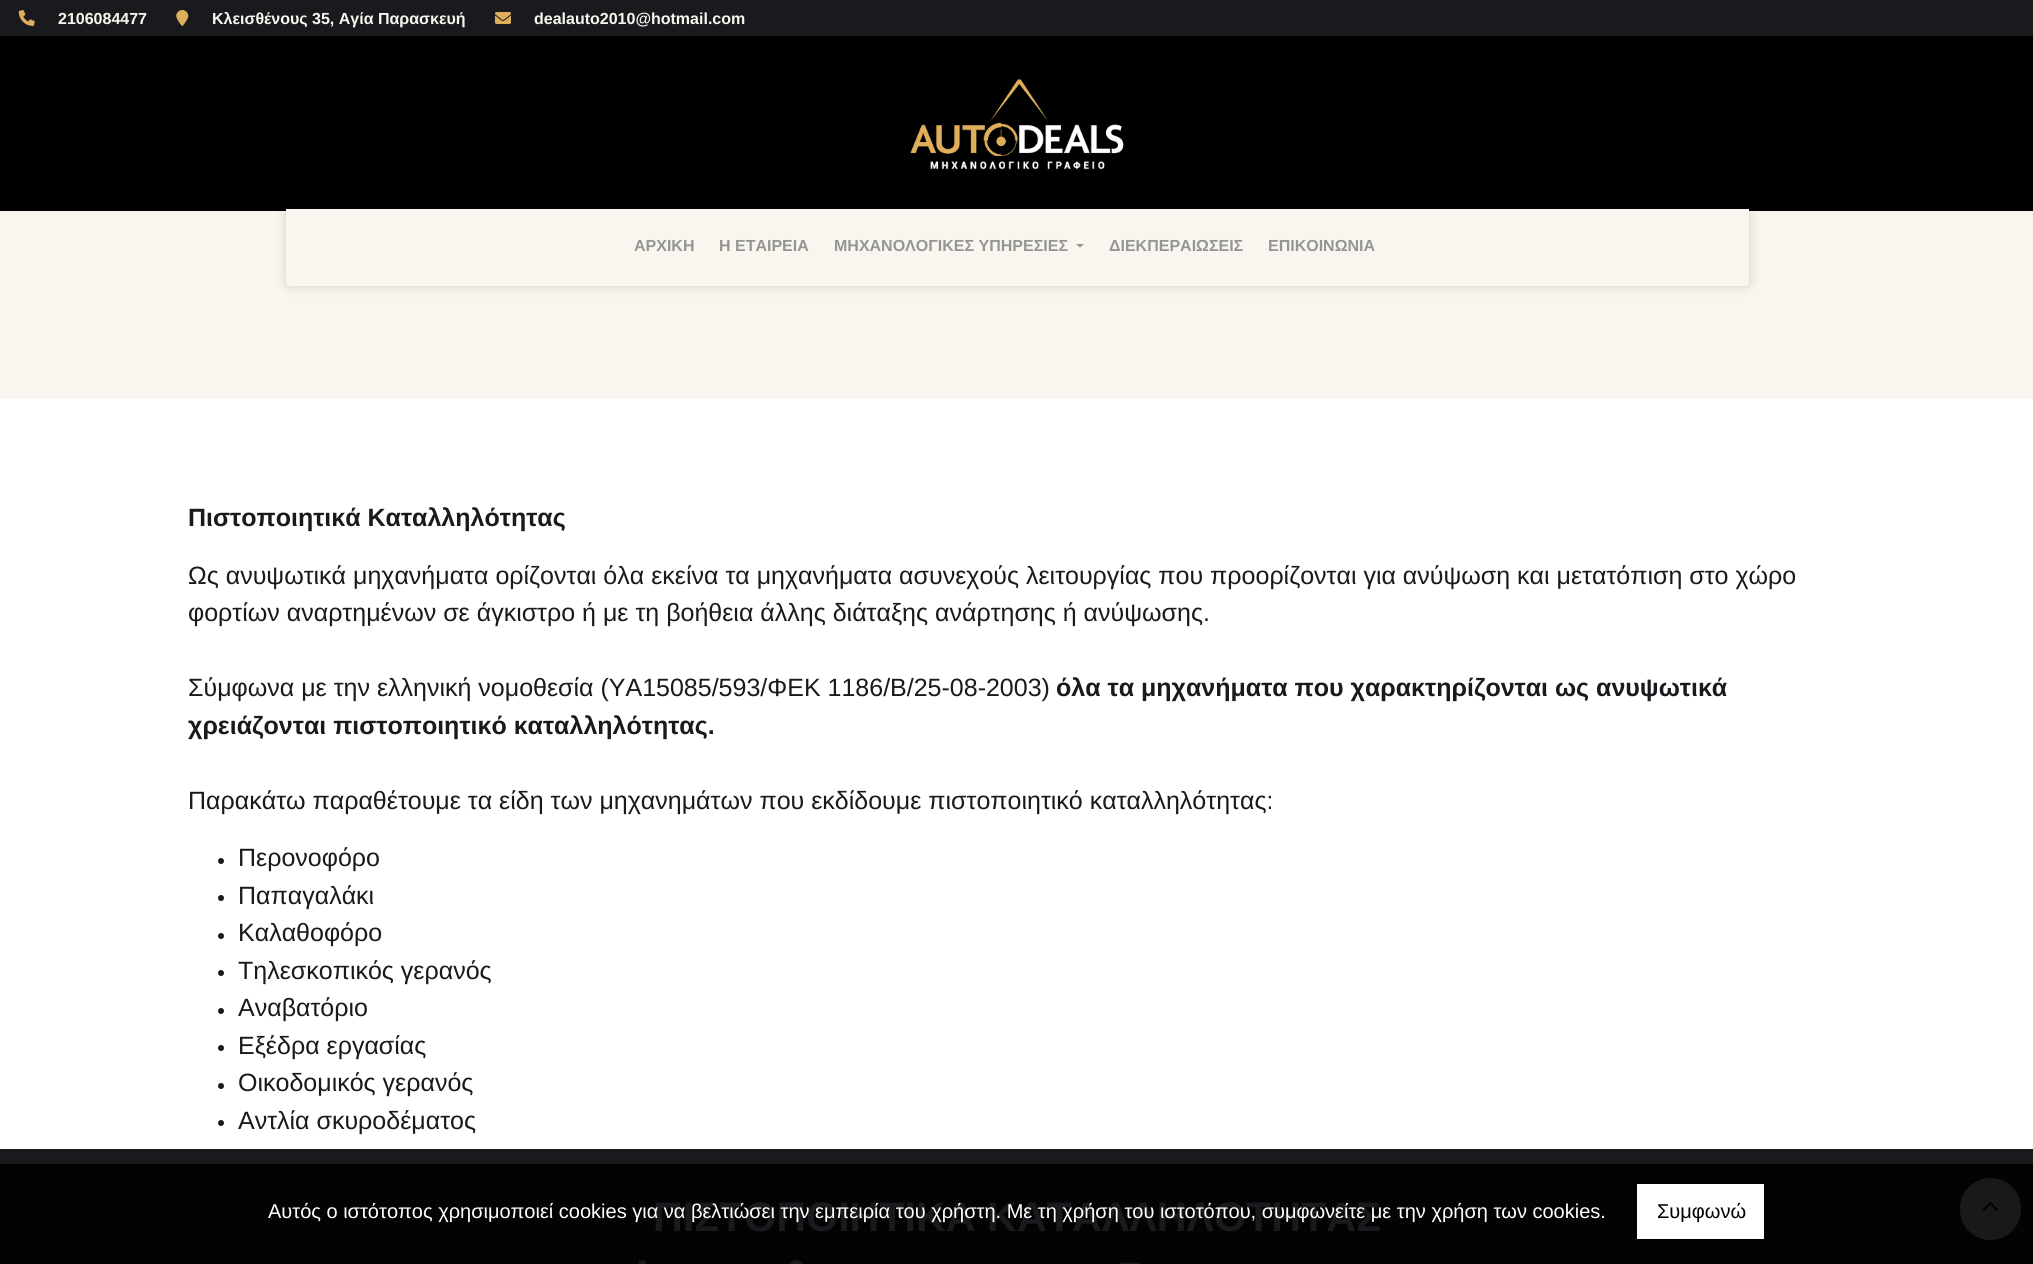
#include <cairo.h>
#include <math.h>
#include <stddef.h>


static void rgb(cairo_t *cr, int r, int g, int b)
{
	cairo_set_source_rgb(cr, r / 255.0, g / 255.0, b / 255.0);
}

static void face(cairo_t *cr, const char *family, double size, int italic, int bold)
{
	cairo_select_font_face(cr, family, italic ? CAIRO_FONT_SLANT_ITALIC : CAIRO_FONT_SLANT_NORMAL,
		bold ? CAIRO_FONT_WEIGHT_BOLD : CAIRO_FONT_WEIGHT_NORMAL);
	cairo_set_font_size(cr, size);
}

static void label(cairo_t *cr, double x, double y, const char *s)
{
	cairo_move_to(cr, x, y);
	cairo_show_text(cr, s);
}

static void rect(cairo_t *cr, double x, double y, double w, double h)
{
	cairo_rectangle(cr, x, y, w, h);
	cairo_fill(cr);
}

static void rrect(cairo_t *cr, double x, double y, double w, double h, double r)
{
	cairo_new_sub_path(cr);
	cairo_arc(cr, x + w - r, y + h - r, r, 0, M_PI / 2);
	cairo_arc(cr, x + r, y + h - r, r, M_PI / 2, M_PI);
	cairo_arc(cr, x + r, y + r, r, M_PI, 1.5 * M_PI);
	cairo_arc(cr, x + w - r, y + r, r, 1.5 * M_PI, 2 * M_PI);
	cairo_close_path(cr);
}

static void soft_shadow(cairo_t *cr, double x, double y, double w, double h, double r, double blur, double alpha)
{
	cairo_push_group_with_content(cr, CAIRO_CONTENT_ALPHA);
	cairo_set_operator(cr, CAIRO_OPERATOR_SOURCE);
	for (int i = 15; i >= -15 && fmin(w, h) + blur * i / 3 > 0; i -= 2) {
		double e = blur * i / 6;
		cairo_set_source_rgba(cr, 0, 0, 0, alpha * erfc((i - 1) / 8.5) / 2);
		rrect(cr, x - e, y - e, w + 2 * e, h + 2 * e, fmax(0, fmin(r + e + blur * .6, fmin(w, h) / 2 + e)));
		cairo_fill(cr);
	}
	cairo_pattern_t *soft = cairo_pop_group(cr);
	cairo_mask(cr, soft);
	cairo_pattern_destroy(soft);
}

static void image(cairo_t *cr, const char *path, double x, double y, double w, double h)
{
	cairo_surface_t *image = cairo_image_surface_create_from_png(path);
	cairo_save(cr);
	cairo_set_source_surface(cr, image, x, y);
	cairo_rectangle(cr, x, y, w, h);
	cairo_fill(cr);
	cairo_restore(cr);
	cairo_surface_destroy(image);
}

static void draw(cairo_t *cr) {
	rgb(cr, 255, 255, 255);
	cairo_paint(cr);
	rgb(cr, 25, 26, 29);
	rect(cr, 0, 0, 2033, 36);
	image(cr, "image0.png", 18, 10, 17, 16);
	face(cr, "Arimo", 16, 0, 1);
	rgb(cr, 248, 246, 238);
	label(cr, 58, 24, "2106084477");
	image(cr, "image1.png", 176, 10, 13, 16);
	label(cr, 212, 24, "Κλεισθένους 35, Αγία Παρασκευή");
	image(cr, "image2.png", 495, 12, 16, 12);
	label(cr, 534, 24, "dealauto2010@hotmail.com");
	rgb(cr, 0, 0, 0);
	rect(cr, 0, 36, 2033, 175);
	image(cr, "image3.png", 910, 79, 214, 91);
	rgb(cr, 248, 246, 238);
	rect(cr, 0, 211, 2033, 188);
	rgb(cr, 0, 0, 0);
	soft_shadow(cr, 286, 209, 1463, 77, 4, 6, 0.15);
	rgb(cr, 248, 246, 238);
	cairo_new_path(cr);
	cairo_move_to(cr, 286, 209);
	cairo_line_to(cr, 1749, 209);
	cairo_line_to(cr, 1749, 282);
	cairo_curve_to(cr, 1749, 284, 1747, 286, 1745, 286);
	cairo_line_to(cr, 290, 286);
	cairo_curve_to(cr, 288, 286, 286, 284, 286, 282);
	cairo_close_path(cr);
	cairo_fill(cr);
	rgb(cr, 149, 149, 149);
	label(cr, 634, 251, "ΑΡΧΙΚΗ");
	label(cr, 719, 251, "Η ΕΤΑΙΡΕΙΑ");
	label(cr, 834, 251, "ΜΗΧΑΝΟΛΟΓΙΚΕΣ ΥΠΗΡΕΣΙΕΣ");
	cairo_new_path(cr);
	cairo_move_to(cr, 1076, 244);
	cairo_line_to(cr, 1084, 244);
	cairo_line_to(cr, 1080, 247.5);
	cairo_close_path(cr);
	cairo_fill(cr);
	label(cr, 1109, 251, "ΔΙΕΚΠΕΡΑΙΩΣΕΙΣ");
	label(cr, 1268, 251, "ΕΠΙΚΟΙΝΩΝΙΑ");
	face(cr, "Arimo", 25, 0, 1);
	rgb(cr, 25, 26, 29);
	label(cr, 188, 526, "Πιστοποιητικά Καταλληλότητας");
	face(cr, "Arimo", 25, 0, 0);
	label(cr, 188, 584, "Ως ανυψωτικά μηχανήματα ορίζονται όλα εκείνα τα μηχανήματα ασυνεχούς λειτουργίας που προορίζονται για ανύψωση και μετατόπιση στο χώρο");
	label(cr, 188, 621, "φορτίων αναρτημένων σε άγκιστρο ή με τη βοήθεια άλλης διάταξης ανάρτησης ή ανύψωσης.");
	label(cr, 188, 696, "Σύμφωνα με την ελληνική νομοθεσία (ΥΑ15085/593/ΦΕΚ 1186/Β/25-08-2003)");
	face(cr, "Arimo", 25, 0, 1);
	label(cr, 1056, 696, "όλα τα μηχανήματα που χαρακτηρίζονται ως ανυψωτικά");
	label(cr, 188, 734, "χρειάζονται πιστοποιητικό καταλληλότητας.");
	face(cr, "Arimo", 25, 0, 0);
	label(cr, 188, 809, "Παρακάτω παραθέτουμε τα είδη των μηχανημάτων που εκδίδουμε πιστοποιητικό καταλληλότητας:");
	cairo_new_path(cr);
	cairo_arc(cr, 221, 861, 3, 0, 2 * M_PI);
	cairo_fill(cr);
	label(cr, 238, 866, "Περονοφόρο");
	cairo_new_path(cr);
	cairo_arc(cr, 221, 898, 3, 0, 2 * M_PI);
	cairo_fill(cr);
	label(cr, 238, 904, "Παπαγαλάκι");
	cairo_new_path(cr);
	cairo_arc(cr, 221, 936, 3, 0, 2 * M_PI);
	cairo_fill(cr);
	label(cr, 238, 941, "Καλαθοφόρο");
	cairo_new_path(cr);
	cairo_arc(cr, 221, 973, 3, 0, 2 * M_PI);
	cairo_fill(cr);
	label(cr, 238, 979, "Τηλεσκοπικός γερανός");
	cairo_new_path(cr);
	cairo_arc(cr, 221, 1011, 3, 0, 2 * M_PI);
	cairo_fill(cr);
	label(cr, 238, 1016, "Αναβατόριο");
	cairo_new_path(cr);
	cairo_arc(cr, 221, 1048, 3, 0, 2 * M_PI);
	cairo_fill(cr);
	label(cr, 238, 1054, "Εξέδρα εργασίας");
	cairo_new_path(cr);
	cairo_arc(cr, 221, 1086, 3, 0, 2 * M_PI);
	cairo_fill(cr);
	label(cr, 238, 1091, "Οικοδομικός γερανός");
	cairo_new_path(cr);
	cairo_arc(cr, 221, 1123, 3, 0, 2 * M_PI);
	cairo_fill(cr);
	label(cr, 238, 1129, "Αντλία σκυροδέματος");
	rgb(cr, 2, 3, 3);
	rect(cr, 0, 1164, 2033, 100);
	face(cr, "Arimo", 41.25, 0, 1);
	rgb(cr, 25, 26, 29);
	label(cr, 653, 1231, "ΠΙΣΤΟΠΟΙΗΤΙΚΑ ΚΑΤΑΛΛΗΛΟΤΗΤΑΣ");
	face(cr, "Arimo", 20, 0, 0);
	rgb(cr, 255, 255, 255);
	label(cr, 268, 1218, "Αυτός ο ιστότοπος χρησιμοποιεί cookies για να βελτιώσει την εμπειρία του χρήστη. Με τη χρήση του ιστοτόπου, συμφωνείτε με την χρήση των cookies.");
	cairo_rectangle(cr, 1636.5, 1183.5, 128, 56);
	cairo_fill_preserve(cr);
	rgb(cr, 0, 0, 0);
	cairo_set_line_width(cr, 1);
	cairo_stroke(cr);
	label(cr, 1657, 1218, "Συμφωνώ");
	rgb(cr, 25, 25, 24);
	rrect(cr, 1960, 1178, 61, 62, 30.5);
	cairo_fill(cr);
	image(cr, "image4.png", 1982, 1202, 17, 10);
	rgb(cr, 25, 26, 29);
	rect(cr, 0, 1149, 2033, 15);
	image(cr, "image5.png", 638, 1260, 9, 4);
	image(cr, "image6.png", 789, 1260, 14, 4);
	image(cr, "image7.png", 1120, 1262, 20, 2);
}

int main(void) {
	cairo_surface_t *surface = cairo_image_surface_create(CAIRO_FORMAT_RGB24, 2033, 1264);
	cairo_t *cr = cairo_create(surface);
	cairo_font_options_t *options = cairo_font_options_create();
	cairo_font_options_set_hint_metrics(options, CAIRO_HINT_METRICS_OFF);
	cairo_font_options_set_hint_style(options, CAIRO_HINT_STYLE_NONE);
	cairo_set_font_options(cr, options);
	cairo_set_miter_limit(cr, 4);
	draw(cr);
	cairo_surface_write_to_png(surface, "render.png");
	cairo_font_options_destroy(options);
	cairo_destroy(cr);
	cairo_surface_destroy(surface);
	return 0;
}
